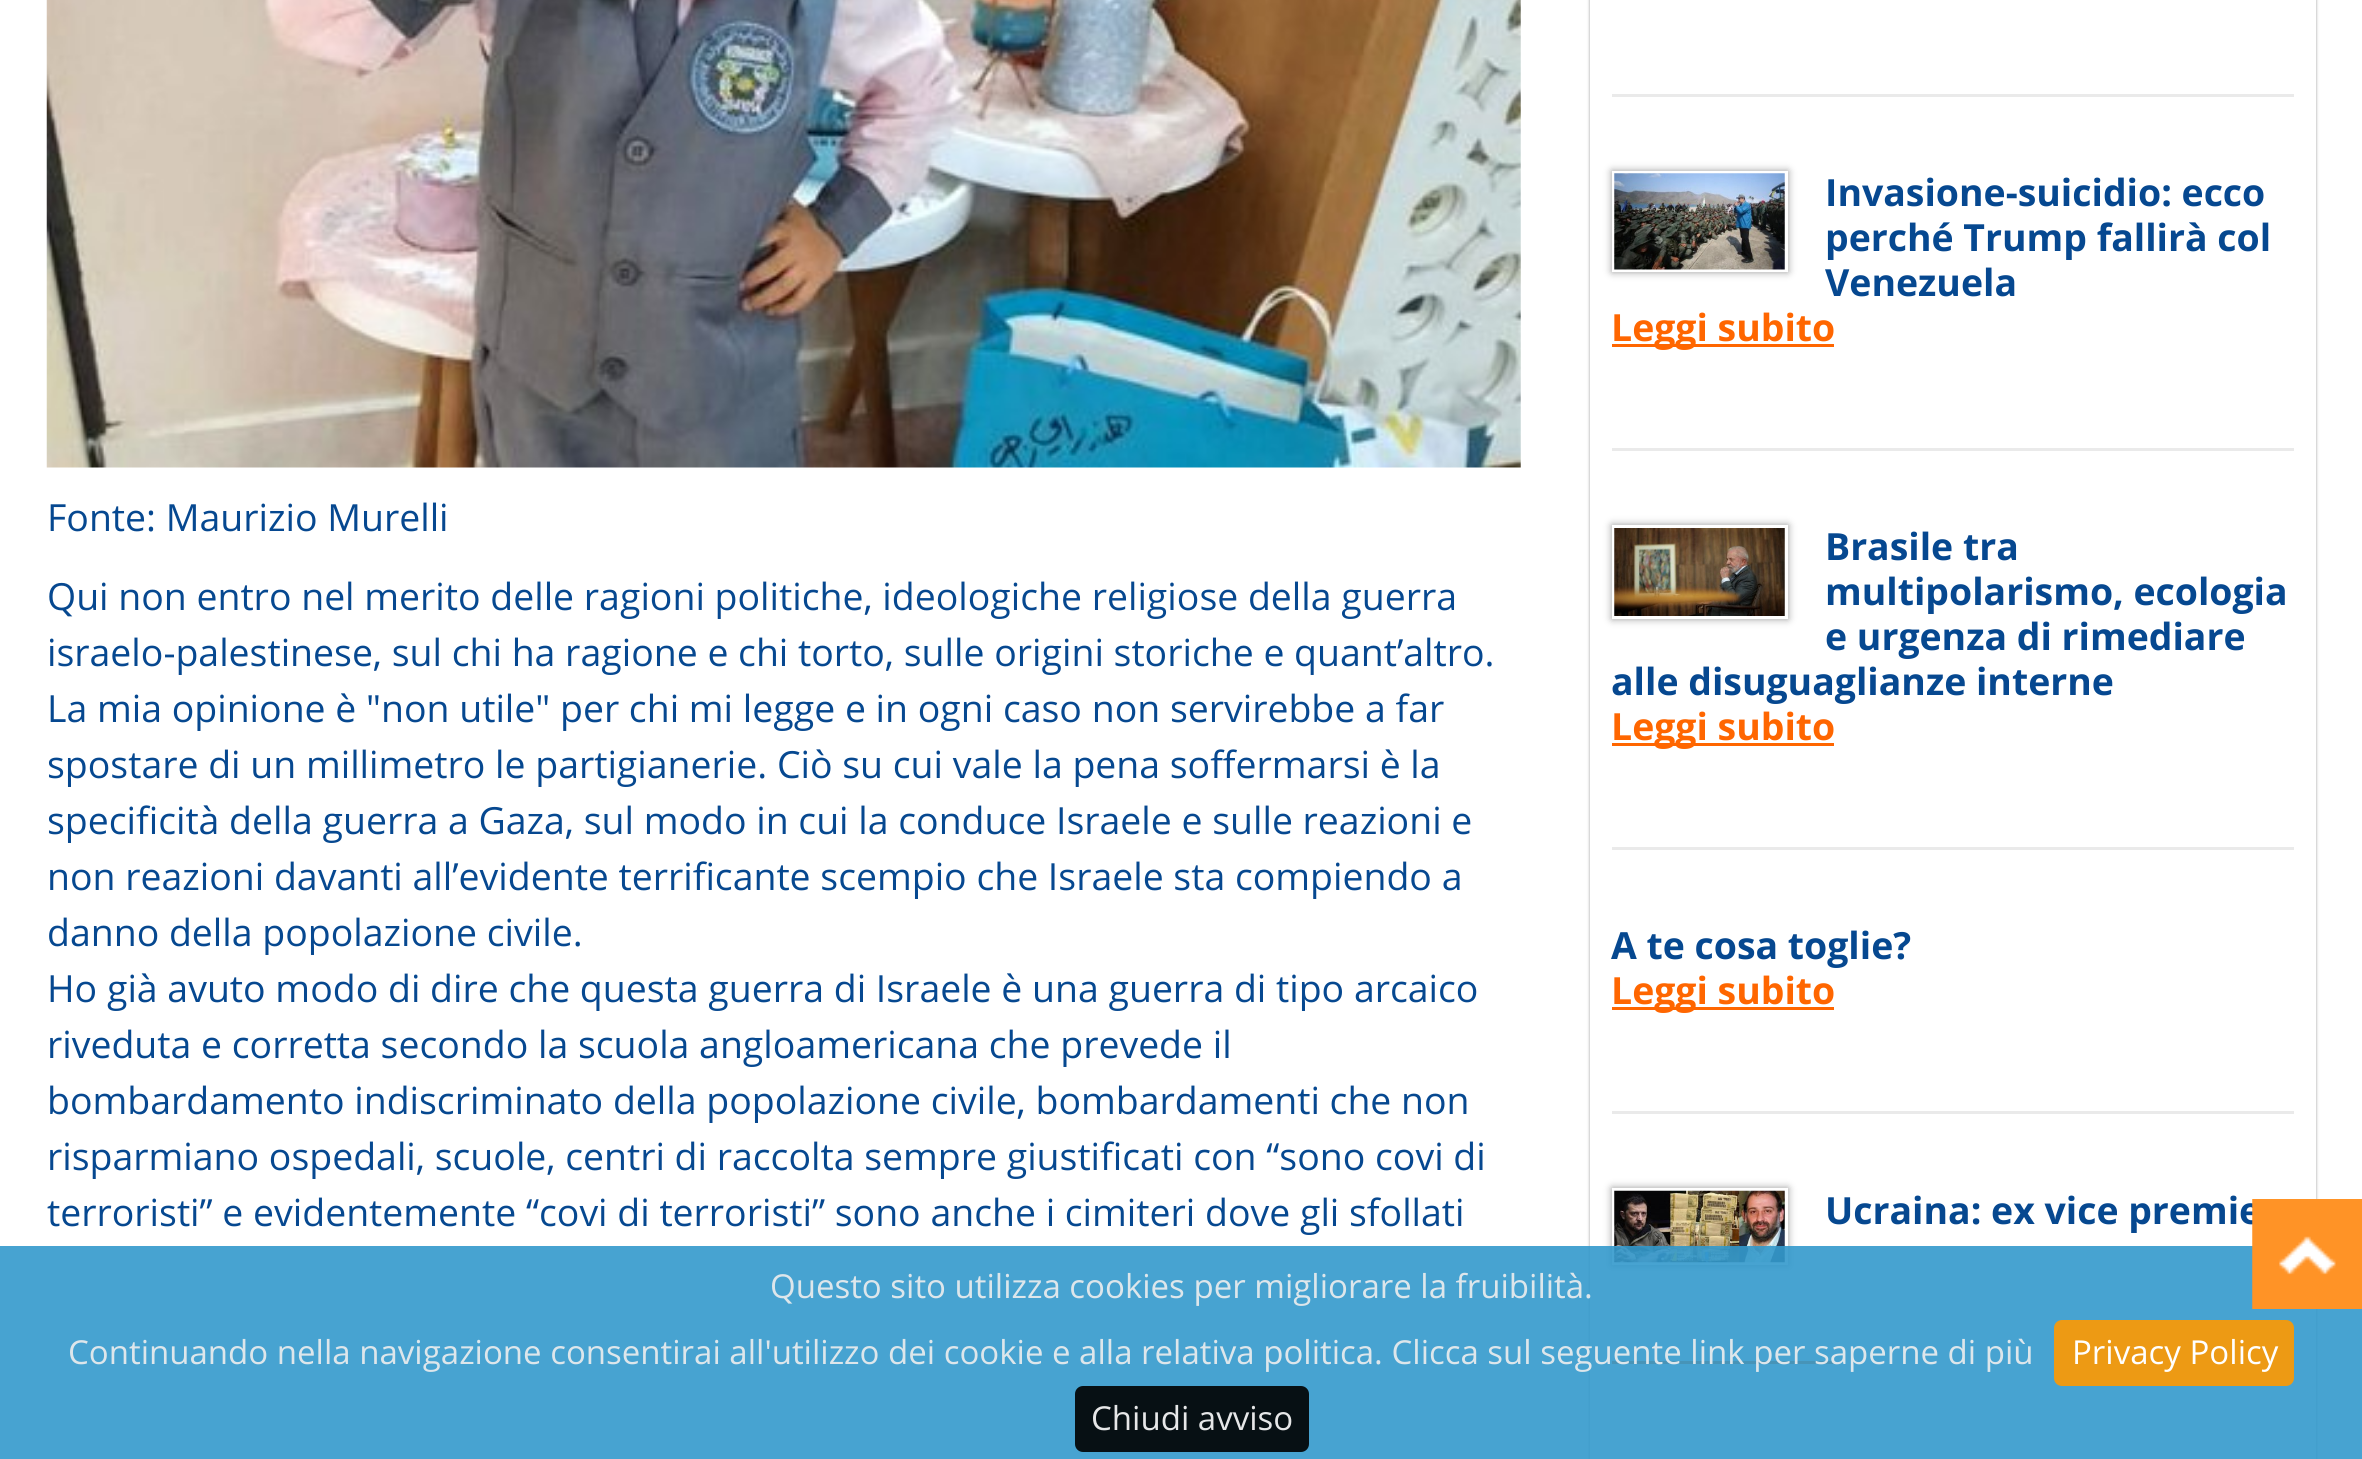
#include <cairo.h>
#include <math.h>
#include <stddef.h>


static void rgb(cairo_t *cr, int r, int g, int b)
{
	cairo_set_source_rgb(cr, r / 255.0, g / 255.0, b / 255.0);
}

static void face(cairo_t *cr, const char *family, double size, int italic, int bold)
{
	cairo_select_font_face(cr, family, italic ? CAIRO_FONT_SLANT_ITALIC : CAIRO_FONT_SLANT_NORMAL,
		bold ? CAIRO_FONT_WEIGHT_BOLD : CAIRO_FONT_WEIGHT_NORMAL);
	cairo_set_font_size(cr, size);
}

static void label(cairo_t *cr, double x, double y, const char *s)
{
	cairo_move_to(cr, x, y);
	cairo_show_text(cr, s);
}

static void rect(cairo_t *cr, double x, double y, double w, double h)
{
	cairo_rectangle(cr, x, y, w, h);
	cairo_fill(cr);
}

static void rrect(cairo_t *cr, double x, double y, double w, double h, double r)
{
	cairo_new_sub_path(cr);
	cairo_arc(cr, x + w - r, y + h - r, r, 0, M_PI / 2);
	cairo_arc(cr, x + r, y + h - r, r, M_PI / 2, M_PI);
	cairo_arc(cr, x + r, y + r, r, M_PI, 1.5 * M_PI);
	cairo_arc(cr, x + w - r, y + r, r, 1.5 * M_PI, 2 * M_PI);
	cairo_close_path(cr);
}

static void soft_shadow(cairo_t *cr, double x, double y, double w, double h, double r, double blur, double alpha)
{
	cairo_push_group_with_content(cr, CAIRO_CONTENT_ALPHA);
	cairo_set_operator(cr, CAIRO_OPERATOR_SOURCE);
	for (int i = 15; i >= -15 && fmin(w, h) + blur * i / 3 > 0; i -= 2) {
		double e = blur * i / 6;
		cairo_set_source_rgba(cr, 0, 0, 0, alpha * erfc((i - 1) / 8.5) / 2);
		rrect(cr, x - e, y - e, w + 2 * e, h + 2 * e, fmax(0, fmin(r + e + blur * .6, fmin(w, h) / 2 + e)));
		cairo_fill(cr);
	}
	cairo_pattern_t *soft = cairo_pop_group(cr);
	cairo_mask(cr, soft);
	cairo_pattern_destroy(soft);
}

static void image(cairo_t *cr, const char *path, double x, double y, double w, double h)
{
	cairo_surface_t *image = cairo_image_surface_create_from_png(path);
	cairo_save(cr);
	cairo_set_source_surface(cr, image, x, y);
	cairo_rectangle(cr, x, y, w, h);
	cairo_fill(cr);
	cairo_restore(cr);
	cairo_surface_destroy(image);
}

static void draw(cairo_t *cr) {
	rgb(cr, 255, 255, 255);
	cairo_paint(cr);
	image(cr, "image0.png", 46, 0, 1475, 468);
	face(cr, "Open Sans", 37.4, 0, 0);
	rgb(cr, 6, 72, 144);
	label(cr, 47, 531, "Fonte: Maurizio Murelli");
	label(cr, 47, 610, "Qui non entro nel merito delle ragioni politiche, ideologiche religiose della guerra");
	label(cr, 47, 666, "israelo-palestinese, sul chi ha ragione e chi torto, sulle origini storiche e quant’altro.");
	label(cr, 47, 722, "La mia opinione è \"non utile\" per chi mi legge e in ogni caso non servirebbe a far");
	label(cr, 47, 778, "spostare di un millimetro le partigianerie. Ciò su cui vale la pena soffermarsi è la");
	label(cr, 47, 834, "specificità della guerra a Gaza, sul modo in cui la conduce Israele e sulle reazioni e");
	label(cr, 47, 890, "non reazioni davanti all’evidente terrificante scempio che Israele sta compiendo a");
	label(cr, 47, 946, "danno della popolazione civile.");
	label(cr, 47, 1002, "Ho già avuto modo di dire che questa guerra di Israele è una guerra di tipo arcaico");
	label(cr, 47, 1058, "riveduta e corretta secondo la scuola angloamericana che prevede il");
	label(cr, 47, 1114, "bombardamento indiscriminato della popolazione civile, bombardamenti che non");
	label(cr, 47, 1170, "risparmiano ospedali, scuole, centri di raccolta sempre giustificati con “sono covi di");
	label(cr, 47, 1226, "terroristi” e evidentemente “covi di terroristi” sono anche i cimiteri dove gli sfollati");
	cairo_save(cr);
	cairo_set_fill_rule(cr, CAIRO_FILL_RULE_EVEN_ODD);
	cairo_new_path(cr);
	cairo_move_to(cr, 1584, 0);
	cairo_line_to(cr, 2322, 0);
	cairo_line_to(cr, 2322, 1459);
	cairo_line_to(cr, 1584, 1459);
	cairo_close_path(cr);
	cairo_move_to(cr, 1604, -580);
	cairo_line_to(cr, 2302, -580);
	cairo_curve_to(cr, 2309.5, -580, 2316, -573.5, 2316, -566);
	cairo_line_to(cr, 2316, 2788);
	cairo_curve_to(cr, 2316, 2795.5, 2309.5, 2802, 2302, 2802);
	cairo_line_to(cr, 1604, 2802);
	cairo_curve_to(cr, 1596.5, 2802, 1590, 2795.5, 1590, 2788);
	cairo_line_to(cr, 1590, -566);
	cairo_curve_to(cr, 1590, -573.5, 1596.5, -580, 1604, -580);
	cairo_close_path(cr);
	cairo_clip(cr);
	rgb(cr, 153, 153, 153);
	soft_shadow(cr, 1590, -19, 726, 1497, 14, 1.5, 1);
	cairo_restore(cr);
	rgb(cr, 234, 234, 234);
	rect(cr, 1612, 94, 682, 3);
	cairo_save(cr);
	cairo_set_fill_rule(cr, CAIRO_FILL_RULE_EVEN_ODD);
	cairo_new_path(cr);
	cairo_move_to(cr, 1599, 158);
	cairo_line_to(cr, 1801, 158);
	cairo_line_to(cr, 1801, 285);
	cairo_line_to(cr, 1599, 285);
	cairo_close_path(cr);
	cairo_move_to(cr, 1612, 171);
	cairo_line_to(cr, 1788, 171);
	cairo_line_to(cr, 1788, 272);
	cairo_line_to(cr, 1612, 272);
	cairo_close_path(cr);
	cairo_clip(cr);
	rgb(cr, 153, 153, 153);
	soft_shadow(cr, 1612, 171, 176, 101, 0, 4, 1);
	cairo_restore(cr);
	image(cr, "image1.png", 1614, 173, 171, 97);
	face(cr, "Open Sans", 37.4, 0, 1);
	rgb(cr, 6, 72, 144);
	label(cr, 1825, 206, "Invasione-suicidio: ecco");
	label(cr, 1825, 251, "perché Trump fallirà col");
	label(cr, 1825, 296, "Venezuela");
	rgb(cr, 255, 102, 0);
	rect(cr, 1612, 344, 222, 3);
	label(cr, 1611, 341, "Leggi subito");
	rgb(cr, 234, 234, 234);
	rect(cr, 1612, 448, 682, 3);
	cairo_save(cr);
	cairo_set_fill_rule(cr, CAIRO_FILL_RULE_EVEN_ODD);
	cairo_new_path(cr);
	cairo_move_to(cr, 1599, 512);
	cairo_line_to(cr, 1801, 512);
	cairo_line_to(cr, 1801, 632);
	cairo_line_to(cr, 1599, 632);
	cairo_close_path(cr);
	cairo_move_to(cr, 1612, 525);
	cairo_line_to(cr, 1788, 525);
	cairo_line_to(cr, 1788, 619);
	cairo_line_to(cr, 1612, 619);
	cairo_close_path(cr);
	cairo_clip(cr);
	rgb(cr, 153, 153, 153);
	soft_shadow(cr, 1612, 525, 176, 94, 0, 4, 1);
	cairo_restore(cr);
	image(cr, "image2.png", 1614, 528, 171, 88);
	rgb(cr, 6, 72, 144);
	label(cr, 1825, 560, "Brasile tra");
	label(cr, 1825, 605, "multipolarismo, ecologia");
	label(cr, 1825, 650, "e urgenza di rimediare");
	label(cr, 1611, 695, "alle disuguaglianze interne");
	rgb(cr, 255, 102, 0);
	rect(cr, 1612, 743, 222, 3);
	label(cr, 1611, 740, "Leggi subito");
	rgb(cr, 234, 234, 234);
	rect(cr, 1612, 847, 682, 3);
	rgb(cr, 6, 72, 144);
	label(cr, 1611, 959, "A te cosa toglie?");
	rgb(cr, 255, 102, 0);
	rect(cr, 1612, 1007, 222, 3);
	label(cr, 1611, 1004, "Leggi subito");
	rgb(cr, 234, 234, 234);
	rect(cr, 1612, 1111, 682, 3);
	cairo_save(cr);
	cairo_set_fill_rule(cr, CAIRO_FILL_RULE_EVEN_ODD);
	cairo_new_path(cr);
	cairo_move_to(cr, 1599, 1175);
	cairo_line_to(cr, 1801, 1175);
	cairo_line_to(cr, 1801, 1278);
	cairo_line_to(cr, 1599, 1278);
	cairo_close_path(cr);
	cairo_move_to(cr, 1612, 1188);
	cairo_line_to(cr, 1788, 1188);
	cairo_line_to(cr, 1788, 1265);
	cairo_line_to(cr, 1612, 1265);
	cairo_close_path(cr);
	cairo_clip(cr);
	rgb(cr, 153, 153, 153);
	soft_shadow(cr, 1612, 1188, 176, 77, 0, 4, 1);
	cairo_restore(cr);
	image(cr, "image3.png", 1614, 1190, 171, 73);
	rgb(cr, 6, 72, 144);
	label(cr, 1825, 1224, "Ucraina: ex vice premie");
	rgb(cr, 255, 102, 0);
	rect(cr, 1612, 1361, 222, 3);
	cairo_set_source_rgba(cr, 0.2, 0.6, 0.8, 0.9);
	rect(cr, 0, 1246, 2362, 213);
	image(cr, "image4.png", 2252, 1199, 110, 110);
	face(cr, "Open Sans", 33, 0, 0);
	rgb(cr, 221, 230, 235);
	label(cr, 770, 1298, "Questo sito utilizza cookies per migliorare la fruibilità.");
	label(cr, 68, 1364, "Continuando nella navigazione consentirai all'utilizzo dei cookie e alla relativa politica. Clicca sul seguente link per saperne di più");
	cairo_set_source_rgba(cr, 1, 0.6, 0, 0.9);
	rrect(cr, 2054, 1320, 240, 66, 8);
	cairo_fill(cr);
	rgb(cr, 255, 255, 255);
	label(cr, 2072, 1364, "Privacy Policy");
	cairo_set_source_rgba(cr, 0, 0, 0, 0.9);
	rrect(cr, 1075, 1386, 234, 66, 8);
	cairo_fill(cr);
	rgb(cr, 230, 231, 232);
	label(cr, 1091, 1430, "Chiudi avviso");
}

int main(void) {
	cairo_surface_t *surface = cairo_image_surface_create(CAIRO_FORMAT_RGB24, 2362, 1459);
	cairo_t *cr = cairo_create(surface);
	cairo_font_options_t *options = cairo_font_options_create();
	cairo_font_options_set_hint_metrics(options, CAIRO_HINT_METRICS_OFF);
	cairo_font_options_set_hint_style(options, CAIRO_HINT_STYLE_NONE);
	cairo_set_font_options(cr, options);
	cairo_set_miter_limit(cr, 4);
	draw(cr);
	cairo_surface_write_to_png(surface, "render.png");
	cairo_font_options_destroy(options);
	cairo_destroy(cr);
	cairo_surface_destroy(surface);
	return 0;
}
